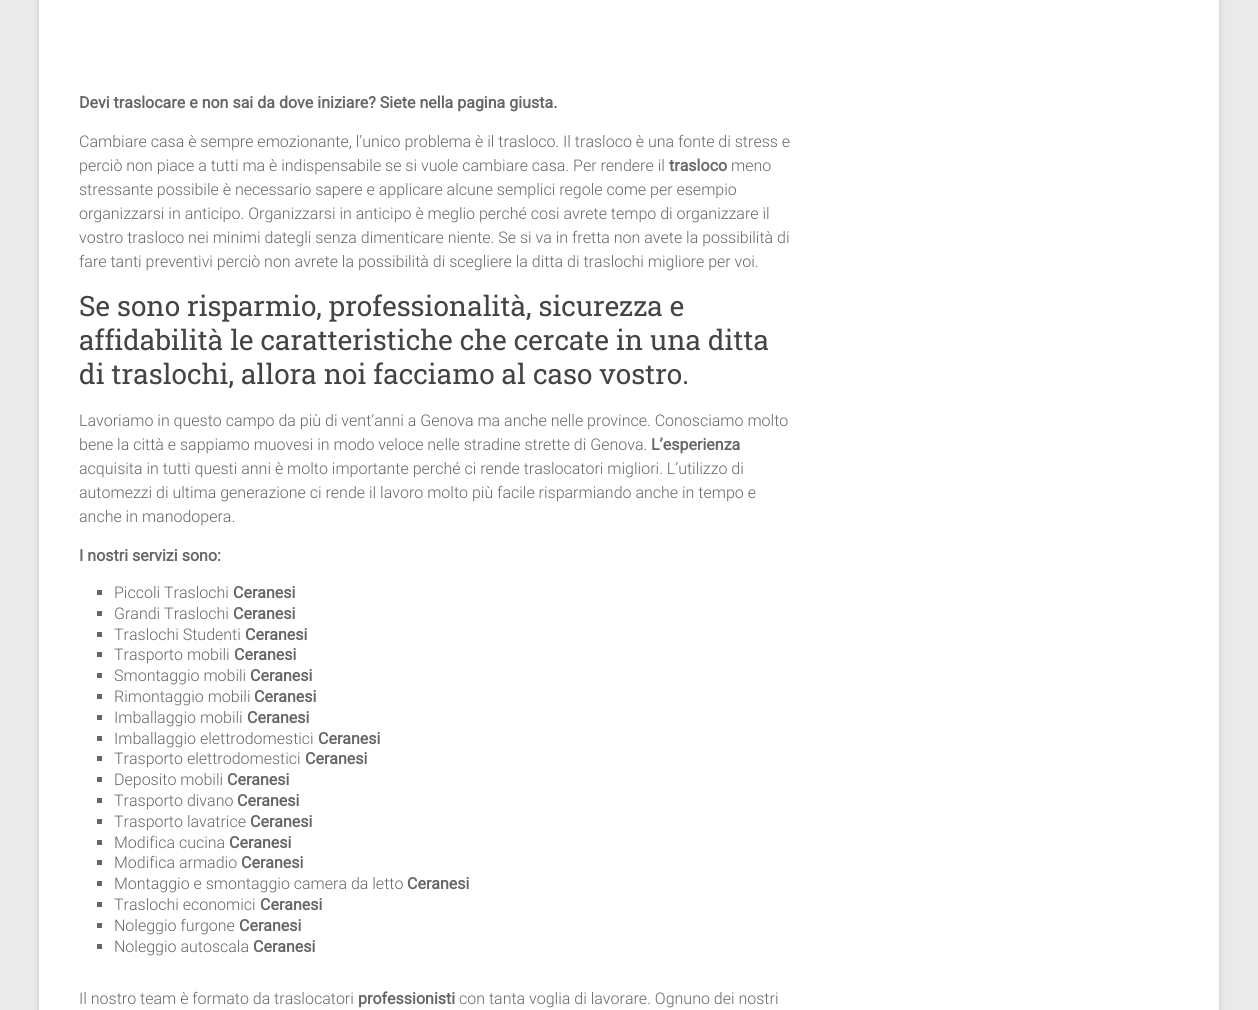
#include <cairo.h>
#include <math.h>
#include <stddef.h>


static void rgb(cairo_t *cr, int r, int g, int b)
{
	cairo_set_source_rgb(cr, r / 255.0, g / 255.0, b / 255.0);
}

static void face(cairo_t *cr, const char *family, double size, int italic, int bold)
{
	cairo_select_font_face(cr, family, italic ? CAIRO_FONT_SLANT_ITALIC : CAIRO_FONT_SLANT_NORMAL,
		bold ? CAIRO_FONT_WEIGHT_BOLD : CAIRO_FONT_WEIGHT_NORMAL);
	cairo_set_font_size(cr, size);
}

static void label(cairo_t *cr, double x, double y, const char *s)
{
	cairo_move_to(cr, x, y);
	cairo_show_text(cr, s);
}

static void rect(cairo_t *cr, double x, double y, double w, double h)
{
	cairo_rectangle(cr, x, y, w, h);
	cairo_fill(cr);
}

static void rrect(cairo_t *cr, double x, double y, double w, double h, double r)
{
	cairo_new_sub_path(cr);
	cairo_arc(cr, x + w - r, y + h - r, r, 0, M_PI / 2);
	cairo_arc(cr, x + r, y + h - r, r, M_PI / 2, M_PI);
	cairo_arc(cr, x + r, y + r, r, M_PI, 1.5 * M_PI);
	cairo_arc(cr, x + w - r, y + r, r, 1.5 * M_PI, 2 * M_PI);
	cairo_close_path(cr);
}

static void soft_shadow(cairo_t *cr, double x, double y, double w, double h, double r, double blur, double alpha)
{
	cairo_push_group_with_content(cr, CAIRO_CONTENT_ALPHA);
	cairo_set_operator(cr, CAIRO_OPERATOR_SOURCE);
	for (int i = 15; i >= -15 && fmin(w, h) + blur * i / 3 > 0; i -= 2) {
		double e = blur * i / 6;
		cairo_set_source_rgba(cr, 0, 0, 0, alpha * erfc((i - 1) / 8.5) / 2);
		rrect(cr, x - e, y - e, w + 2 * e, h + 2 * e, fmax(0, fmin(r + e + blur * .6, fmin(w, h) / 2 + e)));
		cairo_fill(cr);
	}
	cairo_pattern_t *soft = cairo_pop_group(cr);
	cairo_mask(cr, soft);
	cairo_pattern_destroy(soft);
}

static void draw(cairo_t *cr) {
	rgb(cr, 234, 234, 234);
	cairo_paint(cr);
	rgb(cr, 100, 100, 100);
	soft_shadow(cr, 39, -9, 1180, 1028, 0, 3, 0.3);
	rgb(cr, 255, 255, 255);
	rect(cr, 39, 0, 1180, 1010);
	face(cr, "Roboto", 16, 0, 1);
	rgb(cr, 102, 102, 102);
	label(cr, 79, 108, "Devi traslocare e non sai da dove iniziare? Siete nella pagina giusta.");
	face(cr, "Roboto Light", 16, 0, 0);
	label(cr, 79, 147, "Cambiare casa è sempre emozionante, l’unico problema è il trasloco. Il trasloco è una fonte di stress e");
	label(cr, 79, 171, "perciò non piace a tutti ma è indispensabile se si vuole cambiare casa. Per rendere il");
	face(cr, "Roboto", 16, 0, 1);
	label(cr, 669, 171, "trasloco");
	face(cr, "Roboto Light", 16, 0, 0);
	label(cr, 731, 171, "meno");
	label(cr, 79, 195, "stressante possibile è necessario sapere e applicare alcune semplici regole come per esempio");
	label(cr, 79, 219, "organizzarsi in anticipo. Organizzarsi in anticipo è meglio perché cosi avrete tempo di organizzare il");
	label(cr, 79, 243, "vostro trasloco nei minimi dategli senza dimenticare niente. Se si va in fretta non avete la possibilità di");
	label(cr, 79, 267, "fare tanti preventivi perciò non avrete la possibilità di scegliere la ditta di traslochi migliore per voi.");
	face(cr, "Roboto Slab", 28, 0, 0);
	rgb(cr, 68, 68, 68);
	label(cr, 79, 316, "Se sono risparmio, professionalità, sicurezza e");
	label(cr, 79, 350, "affidabilità le caratteristiche che cercate in una ditta");
	label(cr, 79, 384, "di traslochi, allora noi facciamo al caso vostro.");
	face(cr, "Roboto Light", 16, 0, 0);
	rgb(cr, 102, 102, 102);
	label(cr, 79, 426, "Lavoriamo in questo campo da più di vent’anni a Genova ma anche nelle province. Conosciamo molto");
	label(cr, 79, 450, "bene la città e sappiamo muovesi in modo veloce nelle stradine strette di Genova.");
	face(cr, "Roboto", 16, 0, 1);
	label(cr, 651, 450, "L’esperienza");
	face(cr, "Roboto Light", 16, 0, 0);
	label(cr, 79, 474, "acquisita in tutti questi anni è molto importante perché ci rende traslocatori migliori. L’utilizzo di");
	label(cr, 79, 498, "automezzi di ultima generazione ci rende il lavoro molto più facile risparmiando anche in tempo e");
	label(cr, 79, 522, "anche in manodopera.");
	face(cr, "Roboto", 16, 0, 1);
	label(cr, 79, 561, "I nostri servizi sono:");
	rect(cr, 97, 590, 5, 5);
	face(cr, "Roboto Light", 16, 0, 0);
	label(cr, 114, 598, "Piccoli Traslochi");
	face(cr, "Roboto", 16, 0, 1);
	label(cr, 233, 598, "Ceranesi");
	rect(cr, 97, 611, 5, 5);
	face(cr, "Roboto Light", 16, 0, 0);
	label(cr, 114, 619, "Grandi Traslochi");
	face(cr, "Roboto", 16, 0, 1);
	label(cr, 233, 619, "Ceranesi");
	rect(cr, 97, 632, 5, 5);
	face(cr, "Roboto Light", 16, 0, 0);
	label(cr, 114, 640, "Traslochi Studenti");
	face(cr, "Roboto", 16, 0, 1);
	label(cr, 245, 640, "Ceranesi");
	rect(cr, 97, 652, 5, 5);
	face(cr, "Roboto Light", 16, 0, 0);
	label(cr, 114, 660, "Trasporto mobili");
	face(cr, "Roboto", 16, 0, 1);
	label(cr, 234, 660, "Ceranesi");
	rect(cr, 97, 673, 5, 5);
	face(cr, "Roboto Light", 16, 0, 0);
	label(cr, 114, 681, "Smontaggio mobili");
	face(cr, "Roboto", 16, 0, 1);
	label(cr, 250, 681, "Ceranesi");
	rect(cr, 97, 694, 5, 5);
	face(cr, "Roboto Light", 16, 0, 0);
	label(cr, 114, 702, "Rimontaggio mobili");
	face(cr, "Roboto", 16, 0, 1);
	label(cr, 254, 702, "Ceranesi");
	rect(cr, 97, 715, 5, 5);
	face(cr, "Roboto Light", 16, 0, 0);
	label(cr, 114, 723, "Imballaggio mobili");
	face(cr, "Roboto", 16, 0, 1);
	label(cr, 247, 723, "Ceranesi");
	rect(cr, 97, 736, 5, 5);
	face(cr, "Roboto Light", 16, 0, 0);
	label(cr, 114, 744, "Imballaggio elettrodomestici");
	face(cr, "Roboto", 16, 0, 1);
	label(cr, 318, 744, "Ceranesi");
	rect(cr, 97, 756, 5, 5);
	face(cr, "Roboto Light", 16, 0, 0);
	label(cr, 114, 764, "Trasporto elettrodomestici");
	face(cr, "Roboto", 16, 0, 1);
	label(cr, 305, 764, "Ceranesi");
	rect(cr, 97, 777, 5, 5);
	face(cr, "Roboto Light", 16, 0, 0);
	label(cr, 114, 785, "Deposito mobili");
	face(cr, "Roboto", 16, 0, 1);
	label(cr, 227, 785, "Ceranesi");
	rect(cr, 97, 798, 5, 5);
	face(cr, "Roboto Light", 16, 0, 0);
	label(cr, 114, 806, "Trasporto divano");
	face(cr, "Roboto", 16, 0, 1);
	label(cr, 237, 806, "Ceranesi");
	rect(cr, 97, 819, 5, 5);
	face(cr, "Roboto Light", 16, 0, 0);
	label(cr, 114, 827, "Trasporto lavatrice");
	face(cr, "Roboto", 16, 0, 1);
	label(cr, 250, 827, "Ceranesi");
	rect(cr, 97, 840, 5, 5);
	face(cr, "Roboto Light", 16, 0, 0);
	label(cr, 114, 848, "Modifica cucina");
	face(cr, "Roboto", 16, 0, 1);
	label(cr, 229, 848, "Ceranesi");
	rect(cr, 97, 860, 5, 5);
	face(cr, "Roboto Light", 16, 0, 0);
	label(cr, 114, 868, "Modifica armadio");
	face(cr, "Roboto", 16, 0, 1);
	label(cr, 241, 868, "Ceranesi");
	rect(cr, 97, 881, 5, 5);
	face(cr, "Roboto Light", 16, 0, 0);
	label(cr, 114, 889, "Montaggio e smontaggio camera da letto");
	face(cr, "Roboto", 16, 0, 1);
	label(cr, 407, 889, "Ceranesi");
	rect(cr, 97, 902, 5, 5);
	face(cr, "Roboto Light", 16, 0, 0);
	label(cr, 114, 910, "Traslochi economici");
	face(cr, "Roboto", 16, 0, 1);
	label(cr, 260, 910, "Ceranesi");
	rect(cr, 97, 923, 5, 5);
	face(cr, "Roboto Light", 16, 0, 0);
	label(cr, 114, 931, "Noleggio furgone");
	face(cr, "Roboto", 16, 0, 1);
	label(cr, 239, 931, "Ceranesi");
	rect(cr, 97, 944, 5, 5);
	face(cr, "Roboto Light", 16, 0, 0);
	label(cr, 114, 952, "Noleggio autoscala");
	face(cr, "Roboto", 16, 0, 1);
	label(cr, 253, 952, "Ceranesi");
	face(cr, "Roboto Light", 16, 0, 0);
	label(cr, 79, 1004, "Il nostro team è formato da traslocatori");
	face(cr, "Roboto", 16, 0, 1);
	label(cr, 358, 1004, "professionisti");
	face(cr, "Roboto Light", 16, 0, 0);
	label(cr, 459, 1004, "con tanta voglia di lavorare. Ognuno dei nostri");
}

int main(void) {
	cairo_surface_t *surface = cairo_image_surface_create(CAIRO_FORMAT_RGB24, 1258, 1010);
	cairo_t *cr = cairo_create(surface);
	cairo_font_options_t *options = cairo_font_options_create();
	cairo_font_options_set_hint_metrics(options, CAIRO_HINT_METRICS_OFF);
	cairo_font_options_set_hint_style(options, CAIRO_HINT_STYLE_NONE);
	cairo_set_font_options(cr, options);
	cairo_set_miter_limit(cr, 4);
	draw(cr);
	cairo_surface_write_to_png(surface, "render.png");
	cairo_font_options_destroy(options);
	cairo_destroy(cr);
	cairo_surface_destroy(surface);
	return 0;
}
